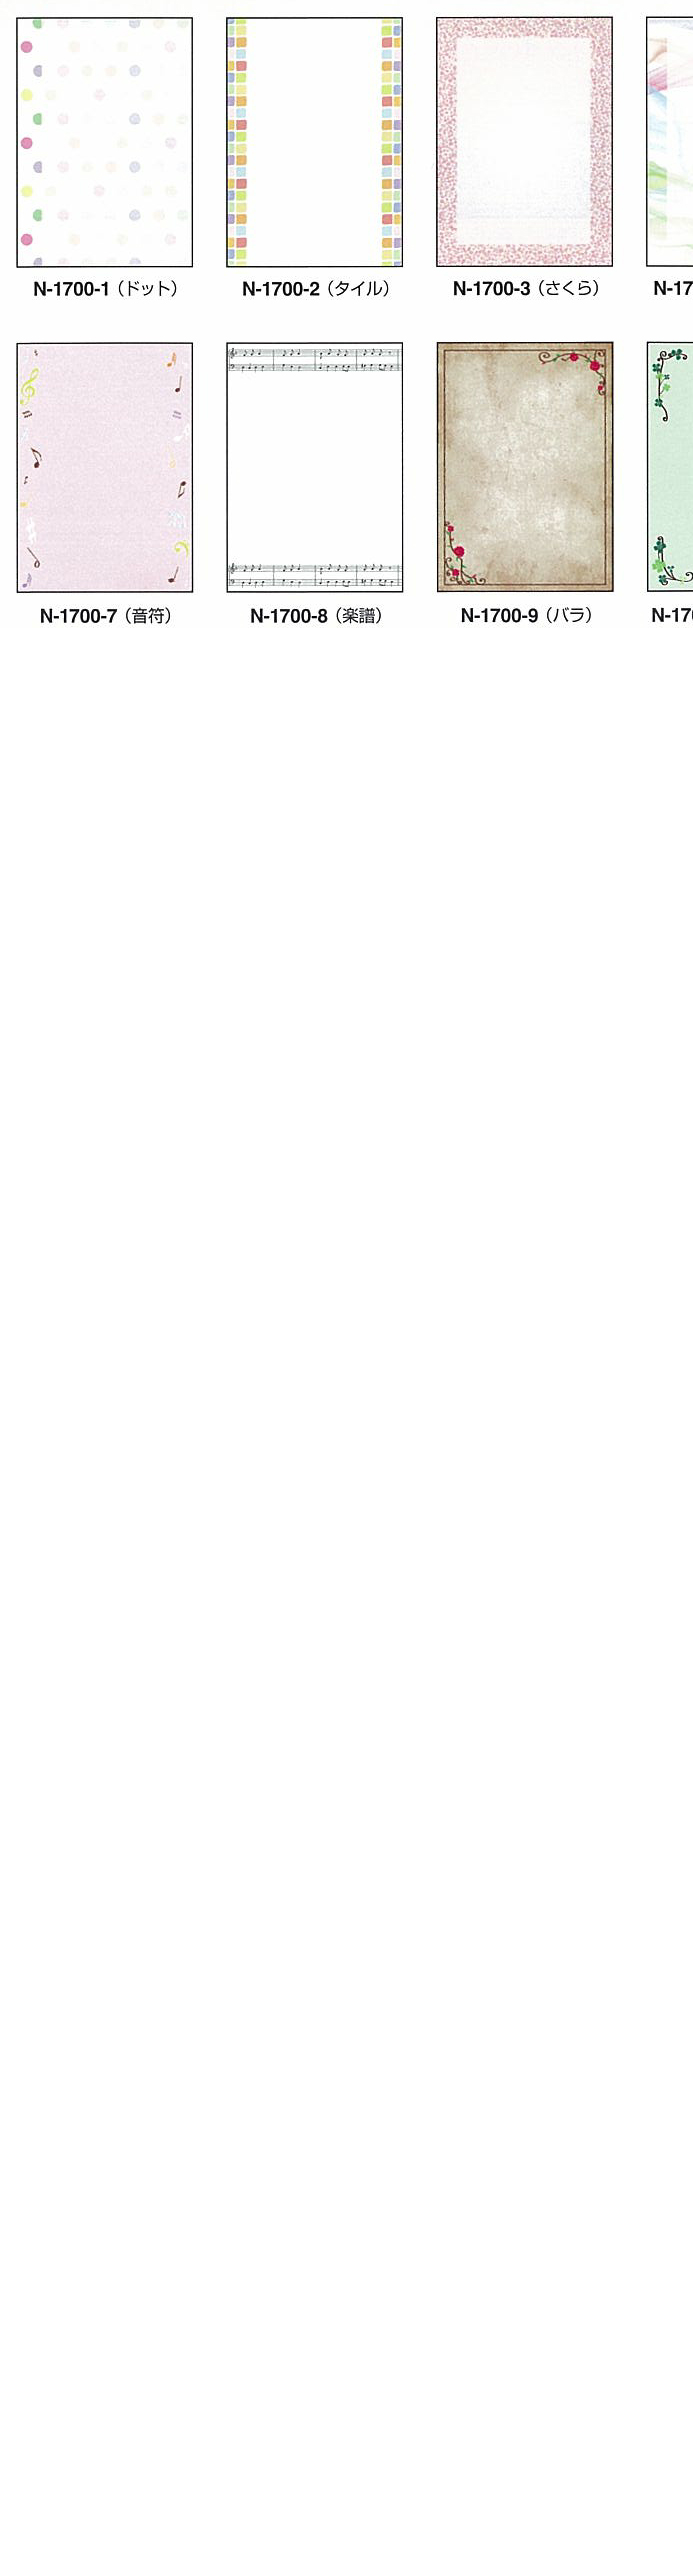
#include <cairo.h>
#include <math.h>
#include <stddef.h>


static void rgb(cairo_t *cr, int r, int g, int b)
{
	cairo_set_source_rgb(cr, r / 255.0, g / 255.0, b / 255.0);
}

static void image(cairo_t *cr, const char *path, double x, double y, double w, double h)
{
	cairo_surface_t *image = cairo_image_surface_create_from_png(path);
	cairo_save(cr);
	cairo_set_source_surface(cr, image, x, y);
	cairo_rectangle(cr, x, y, w, h);
	cairo_fill(cr);
	cairo_restore(cr);
	cairo_surface_destroy(image);
}

static void draw(cairo_t *cr) {
	rgb(cr, 255, 255, 255);
	cairo_paint(cr);
	image(cr, "image0.png", 0, 0, 693, 628);
}

int main(void) {
	cairo_surface_t *surface = cairo_image_surface_create(CAIRO_FORMAT_RGB24, 693, 2568);
	cairo_t *cr = cairo_create(surface);
	cairo_font_options_t *options = cairo_font_options_create();
	cairo_font_options_set_hint_metrics(options, CAIRO_HINT_METRICS_OFF);
	cairo_font_options_set_hint_style(options, CAIRO_HINT_STYLE_NONE);
	cairo_set_font_options(cr, options);
	cairo_set_miter_limit(cr, 4);
	draw(cr);
	cairo_surface_write_to_png(surface, "render.png");
	cairo_font_options_destroy(options);
	cairo_destroy(cr);
	cairo_surface_destroy(surface);
	return 0;
}
